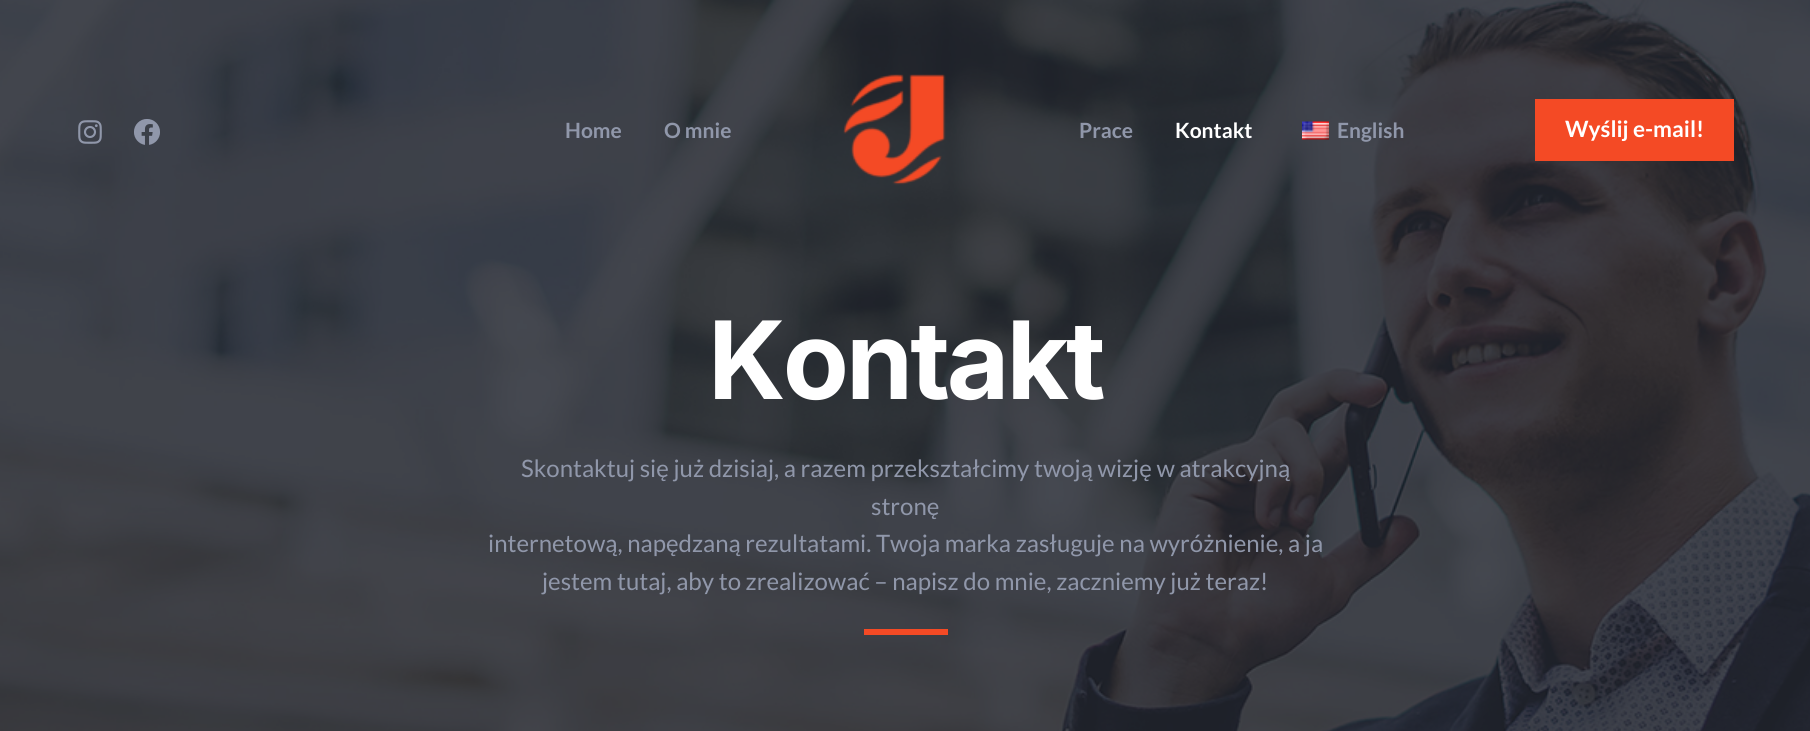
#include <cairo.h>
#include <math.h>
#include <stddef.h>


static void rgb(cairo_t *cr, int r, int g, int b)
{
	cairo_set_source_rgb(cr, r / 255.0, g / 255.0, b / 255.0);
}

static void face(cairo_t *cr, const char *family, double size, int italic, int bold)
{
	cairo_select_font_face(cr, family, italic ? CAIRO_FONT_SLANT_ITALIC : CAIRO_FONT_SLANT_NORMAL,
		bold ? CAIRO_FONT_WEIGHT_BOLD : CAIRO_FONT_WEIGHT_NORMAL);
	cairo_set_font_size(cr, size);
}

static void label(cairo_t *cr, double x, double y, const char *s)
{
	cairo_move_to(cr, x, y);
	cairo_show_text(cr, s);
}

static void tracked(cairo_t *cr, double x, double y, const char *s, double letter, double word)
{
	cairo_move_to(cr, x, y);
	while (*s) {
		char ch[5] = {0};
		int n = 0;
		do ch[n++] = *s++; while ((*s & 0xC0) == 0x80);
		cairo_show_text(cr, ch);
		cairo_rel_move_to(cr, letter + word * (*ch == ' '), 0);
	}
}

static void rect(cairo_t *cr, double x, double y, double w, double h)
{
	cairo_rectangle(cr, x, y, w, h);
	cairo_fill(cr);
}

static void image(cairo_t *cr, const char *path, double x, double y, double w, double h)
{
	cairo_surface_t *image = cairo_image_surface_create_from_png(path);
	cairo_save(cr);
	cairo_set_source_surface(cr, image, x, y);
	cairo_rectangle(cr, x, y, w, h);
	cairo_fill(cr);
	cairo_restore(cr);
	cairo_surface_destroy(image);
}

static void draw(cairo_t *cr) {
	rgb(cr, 255, 255, 255);
	cairo_paint(cr);
	image(cr, "image4.png", 0, 0, 1810, 731);
	image(cr, "image0.png", 78, 120, 24, 24);
	image(cr, "image1.png", 134, 119, 26, 26);
	face(cr, "Lato", 21, 0, 1);
	rgb(cr, 144, 151, 170);
	label(cr, 565, 138, "Home");
	label(cr, 664, 138, "O mnie");
	image(cr, "image2.png", 843, 74, 103, 111);
	label(cr, 1079, 138, "Prace");
	rgb(cr, 255, 255, 255);
	label(cr, 1175, 138, "Kontakt");
	image(cr, "image3.png", 1302, 121, 27, 19);
	rgb(cr, 144, 151, 170);
	label(cr, 1337, 138, "English");
	rgb(cr, 244, 74, 37);
	rect(cr, 1535, 99, 199, 62);
	face(cr, "Lato", 22.5, 0, 1);
	rgb(cr, 255, 255, 255);
	label(cr, 1565, 137, "Wyślij e-mail!");
	face(cr, "Inter", 108, 0, 1);
	tracked(cr, 708, 399, "Kontakt", -3, 0);
	face(cr, "Lato", 24, 0, 0);
	rgb(cr, 144, 151, 170);
	label(cr, 521, 477, "Skontaktuj się już dzisiaj, a razem przekształcimy twoją wizję w atrakcyjną");
	label(cr, 871, 515, "stronę");
	label(cr, 488, 552, "internetową, napędzaną rezultatami. Twoja marka zasługuje na wyróżnienie, a ja");
	label(cr, 542, 590, "jestem tutaj, aby to zrealizować – napisz do mnie, zaczniemy już teraz!");
	rgb(cr, 244, 74, 37);
	rect(cr, 864, 629, 84, 6);
}

int main(void) {
	cairo_surface_t *surface = cairo_image_surface_create(CAIRO_FORMAT_RGB24, 1810, 731);
	cairo_t *cr = cairo_create(surface);
	cairo_font_options_t *options = cairo_font_options_create();
	cairo_font_options_set_hint_metrics(options, CAIRO_HINT_METRICS_OFF);
	cairo_font_options_set_hint_style(options, CAIRO_HINT_STYLE_NONE);
	cairo_set_font_options(cr, options);
	cairo_set_miter_limit(cr, 4);
	draw(cr);
	cairo_surface_write_to_png(surface, "render.png");
	cairo_font_options_destroy(options);
	cairo_destroy(cr);
	cairo_surface_destroy(surface);
	return 0;
}
